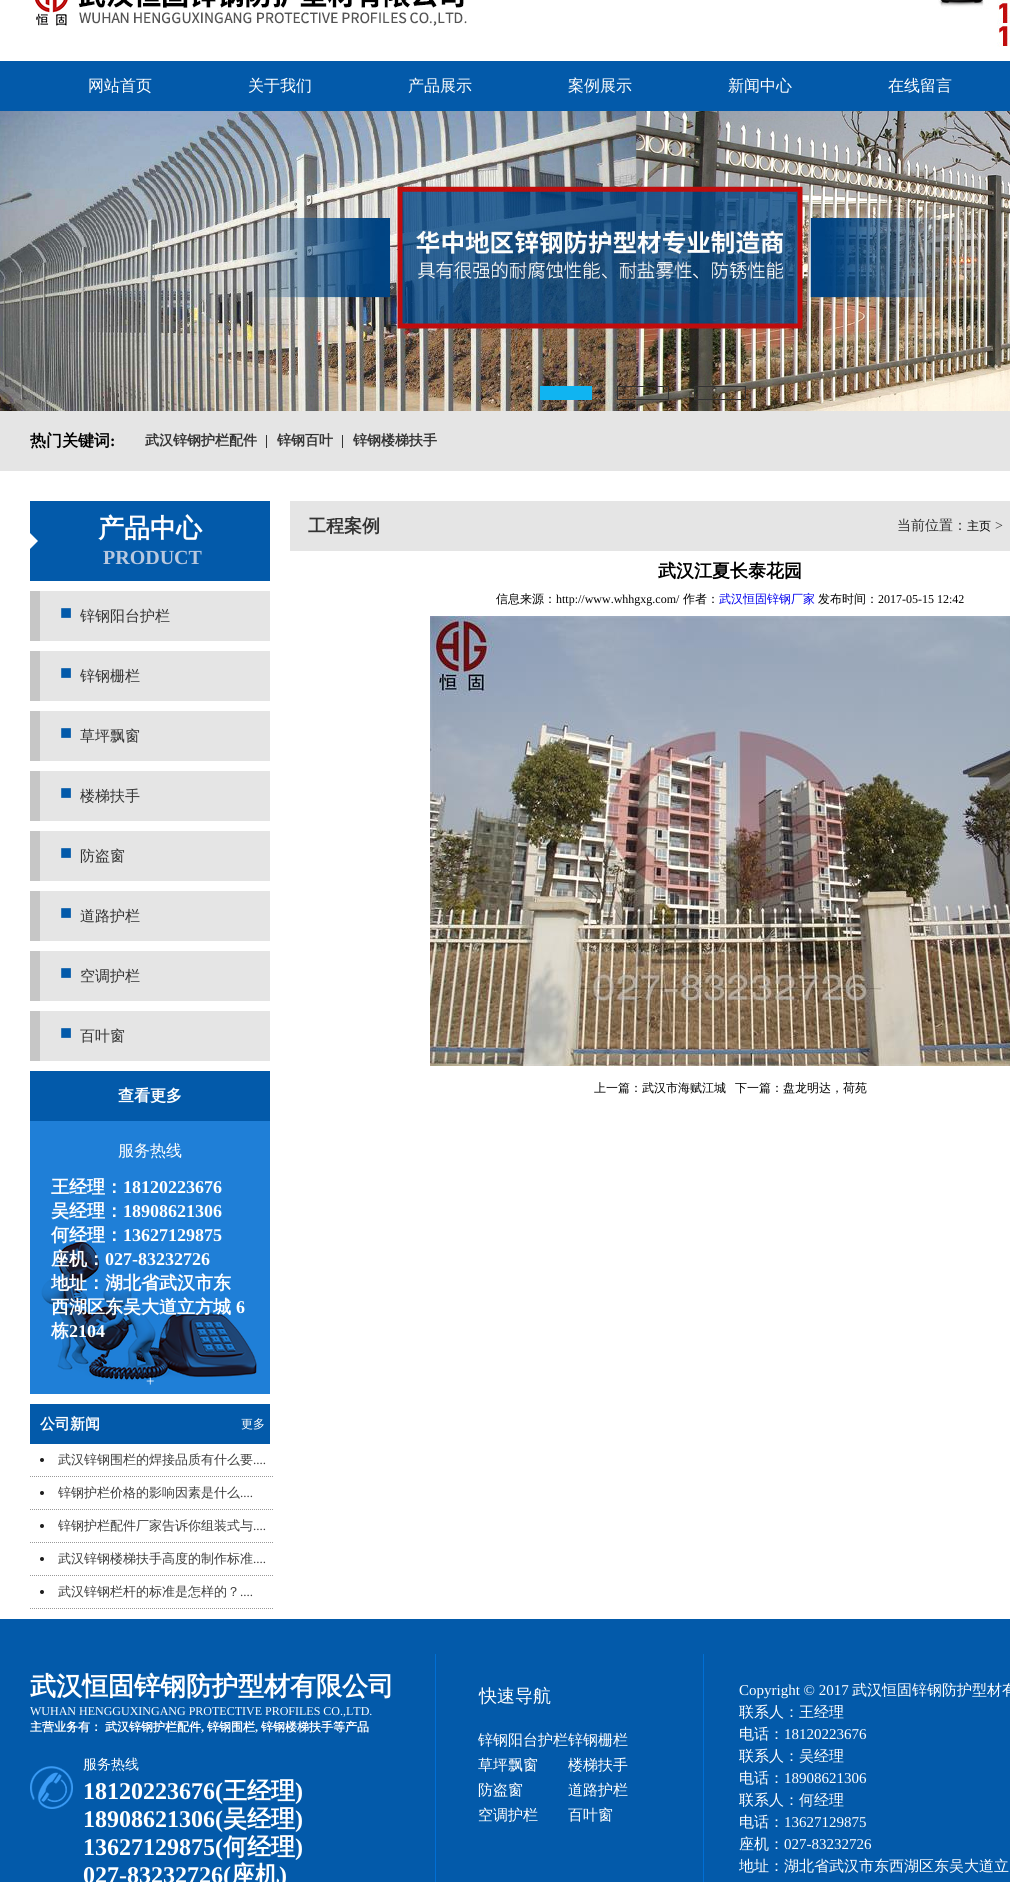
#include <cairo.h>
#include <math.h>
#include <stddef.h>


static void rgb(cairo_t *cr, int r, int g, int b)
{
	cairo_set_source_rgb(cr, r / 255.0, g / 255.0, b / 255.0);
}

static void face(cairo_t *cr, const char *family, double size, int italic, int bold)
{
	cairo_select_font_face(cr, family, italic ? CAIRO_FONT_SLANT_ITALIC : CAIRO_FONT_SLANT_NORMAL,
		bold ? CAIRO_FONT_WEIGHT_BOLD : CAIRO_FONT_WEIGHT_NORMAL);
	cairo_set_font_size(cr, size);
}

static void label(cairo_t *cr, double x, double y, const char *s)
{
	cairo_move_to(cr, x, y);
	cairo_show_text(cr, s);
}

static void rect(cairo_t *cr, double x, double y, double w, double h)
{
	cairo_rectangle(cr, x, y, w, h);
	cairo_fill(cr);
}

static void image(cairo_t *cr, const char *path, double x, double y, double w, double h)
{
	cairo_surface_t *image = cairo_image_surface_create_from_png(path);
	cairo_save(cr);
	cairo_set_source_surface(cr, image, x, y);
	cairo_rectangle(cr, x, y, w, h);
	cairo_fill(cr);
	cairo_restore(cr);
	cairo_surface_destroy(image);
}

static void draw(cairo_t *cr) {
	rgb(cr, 255, 255, 255);
	cairo_paint(cr);
	image(cr, "image0.png", 35, 0, 432, 26);
	image(cr, "image1.png", 938, 0, 72, 47);
	rgb(cr, 3, 90, 170);
	rect(cr, 0, 61, 1010, 50);
	face(cr, "WenQuanYi Zen Hei Medium", 16, 0, 0);
	rgb(cr, 255, 255, 255);
	label(cr, 88, 91, "网站首页");
	label(cr, 248, 91, "关于我们");
	label(cr, 408, 91, "产品展示");
	label(cr, 568, 91, "案例展示");
	label(cr, 728, 91, "新闻中心");
	label(cr, 888, 91, "在线留言");
	image(cr, "image2.png", 0, 111, 1010, 300);
	rgb(cr, 16, 180, 241);
	rect(cr, 540, 386, 52, 14);
	cairo_rectangle(cr, 617.5, 386.5, 51, 13);
	rgb(cr, 51, 51, 51);
	cairo_set_line_width(cr, 1);
	cairo_stroke(cr);
	cairo_rectangle(cr, 694.5, 386.5, 51, 13);
	cairo_stroke(cr);
	rgb(cr, 229, 229, 229);
	rect(cr, 0, 411, 1010, 60);
	face(cr, "WenQuanYi Zen Hei", 16, 0, 1);
	rgb(cr, 0, 0, 0);
	label(cr, 30, 446, "热门关键词");
	face(cr, "Liberation Serif", 16, 0, 1);
	label(cr, 110, 446, ":");
	face(cr, "WenQuanYi Zen Hei", 14, 0, 1);
	rgb(cr, 51, 51, 51);
	label(cr, 145, 445, "武汉锌钢护栏配件");
	rect(cr, 266, 435, 1, 13);
	label(cr, 277, 445, "锌钢百叶");
	rect(cr, 342, 435, 1, 13);
	label(cr, 353, 445, "锌钢楼梯扶手");
	rgb(cr, 3, 90, 170);
	rect(cr, 30, 501, 240, 80);
	image(cr, "image3.png", 30, 533, 8, 16);
	face(cr, "WenQuanYi Zen Hei", 26, 0, 1);
	rgb(cr, 255, 255, 255);
	label(cr, 98, 537, "产品中心");
	face(cr, "Liberation Serif", 20, 0, 1);
	rgb(cr, 184, 200, 223);
	label(cr, 103, 564, "PRODUCT");
	rgb(cr, 229, 229, 229);
	rect(cr, 40, 591, 230, 50);
	rgb(cr, 198, 198, 198);
	rect(cr, 30, 591, 10, 50);
	face(cr, "Liberation Serif", 20, 0, 0);
	rgb(cr, 3, 90, 170);
	label(cr, 60, 619, "■");
	face(cr, "WenQuanYi Zen Hei Medium", 15, 0, 0);
	rgb(cr, 51, 51, 51);
	label(cr, 80, 621, "锌钢阳台护栏");
	rgb(cr, 229, 229, 229);
	rect(cr, 40, 651, 230, 50);
	rgb(cr, 198, 198, 198);
	rect(cr, 30, 651, 10, 50);
	face(cr, "Liberation Serif", 20, 0, 0);
	rgb(cr, 3, 90, 170);
	label(cr, 60, 679, "■");
	face(cr, "WenQuanYi Zen Hei Medium", 15, 0, 0);
	rgb(cr, 51, 51, 51);
	label(cr, 80, 681, "锌钢栅栏");
	rgb(cr, 229, 229, 229);
	rect(cr, 40, 711, 230, 50);
	rgb(cr, 198, 198, 198);
	rect(cr, 30, 711, 10, 50);
	face(cr, "Liberation Serif", 20, 0, 0);
	rgb(cr, 3, 90, 170);
	label(cr, 60, 739, "■");
	face(cr, "WenQuanYi Zen Hei Medium", 15, 0, 0);
	rgb(cr, 51, 51, 51);
	label(cr, 80, 741, "草坪飘窗");
	rgb(cr, 229, 229, 229);
	rect(cr, 40, 771, 230, 50);
	rgb(cr, 198, 198, 198);
	rect(cr, 30, 771, 10, 50);
	face(cr, "Liberation Serif", 20, 0, 0);
	rgb(cr, 3, 90, 170);
	label(cr, 60, 799, "■");
	face(cr, "WenQuanYi Zen Hei Medium", 15, 0, 0);
	rgb(cr, 51, 51, 51);
	label(cr, 80, 801, "楼梯扶手");
	rgb(cr, 229, 229, 229);
	rect(cr, 40, 831, 230, 50);
	rgb(cr, 198, 198, 198);
	rect(cr, 30, 831, 10, 50);
	face(cr, "Liberation Serif", 20, 0, 0);
	rgb(cr, 3, 90, 170);
	label(cr, 60, 859, "■");
	face(cr, "WenQuanYi Zen Hei Medium", 15, 0, 0);
	rgb(cr, 51, 51, 51);
	label(cr, 80, 861, "防盗窗");
	rgb(cr, 229, 229, 229);
	rect(cr, 40, 891, 230, 50);
	rgb(cr, 198, 198, 198);
	rect(cr, 30, 891, 10, 50);
	face(cr, "Liberation Serif", 20, 0, 0);
	rgb(cr, 3, 90, 170);
	label(cr, 60, 919, "■");
	face(cr, "WenQuanYi Zen Hei Medium", 15, 0, 0);
	rgb(cr, 51, 51, 51);
	label(cr, 80, 921, "道路护栏");
	rgb(cr, 229, 229, 229);
	rect(cr, 40, 951, 230, 50);
	rgb(cr, 198, 198, 198);
	rect(cr, 30, 951, 10, 50);
	face(cr, "Liberation Serif", 20, 0, 0);
	rgb(cr, 3, 90, 170);
	label(cr, 60, 979, "■");
	face(cr, "WenQuanYi Zen Hei Medium", 15, 0, 0);
	rgb(cr, 51, 51, 51);
	label(cr, 80, 981, "空调护栏");
	rgb(cr, 229, 229, 229);
	rect(cr, 40, 1011, 230, 50);
	rgb(cr, 198, 198, 198);
	rect(cr, 30, 1011, 10, 50);
	face(cr, "Liberation Serif", 20, 0, 0);
	rgb(cr, 3, 90, 170);
	label(cr, 60, 1039, "■");
	face(cr, "WenQuanYi Zen Hei Medium", 15, 0, 0);
	rgb(cr, 51, 51, 51);
	label(cr, 80, 1041, "百叶窗");
	rgb(cr, 3, 90, 170);
	rect(cr, 30, 1071, 240, 50);
	face(cr, "WenQuanYi Zen Hei", 16, 0, 1);
	rgb(cr, 255, 255, 255);
	label(cr, 118, 1101, "查看更多");
	image(cr, "image4.png", 30, 1121, 240, 273);
	face(cr, "WenQuanYi Zen Hei Medium", 16, 0, 0);
	label(cr, 118, 1156, "服务热线");
	face(cr, "WenQuanYi Zen Hei", 18, 0, 1);
	label(cr, 51, 1193, "王经理：");
	face(cr, "Liberation Serif", 18, 0, 1);
	label(cr, 123, 1193, "18120223676");
	face(cr, "WenQuanYi Zen Hei", 18, 0, 1);
	label(cr, 51, 1217, "吴经理：");
	face(cr, "Liberation Serif", 18, 0, 1);
	label(cr, 123, 1217, "18908621306");
	face(cr, "WenQuanYi Zen Hei", 18, 0, 1);
	label(cr, 51, 1241, "何经理：");
	face(cr, "Liberation Serif", 18, 0, 1);
	label(cr, 123, 1241, "13627129875");
	face(cr, "WenQuanYi Zen Hei", 18, 0, 1);
	label(cr, 51, 1265, "座机：");
	face(cr, "Liberation Serif", 18, 0, 1);
	label(cr, 105, 1265, "027-83232726");
	face(cr, "WenQuanYi Zen Hei", 18, 0, 1);
	label(cr, 51, 1289, "地址：湖北省武汉市东");
	label(cr, 51, 1313, "西湖区东吴大道立方城");
	face(cr, "Liberation Serif", 18, 0, 1);
	label(cr, 236, 1313, "6");
	face(cr, "WenQuanYi Zen Hei", 18, 0, 1);
	label(cr, 51, 1337, "栋");
	face(cr, "Liberation Serif", 18, 0, 1);
	label(cr, 69, 1337, "2104");
	face(cr, "Liberation Serif", 15, 0, 0);
	label(cr, 146, 1386, "+");
	rgb(cr, 3, 90, 170);
	rect(cr, 30, 1404, 240, 40);
	face(cr, "WenQuanYi Zen Hei", 15, 0, 1);
	rgb(cr, 255, 255, 255);
	label(cr, 40, 1429, "公司新闻");
	face(cr, "WenQuanYi Zen Hei Medium", 12, 0, 0);
	label(cr, 241, 1428, "更多");
	cairo_new_path(cr);
	cairo_move_to(cr, 30, 1476.5);
	cairo_line_to(cr, 273, 1476.5);
	rgb(cr, 153, 153, 153);
	cairo_set_dash(cr, (double[]){1, 1}, 2, 0);
	cairo_stroke(cr);
	rgb(cr, 29, 29, 29);
	cairo_arc(cr, 42, 1460, 2, 0, 2 * M_PI);
	cairo_fill(cr);
	face(cr, "WenQuanYi Zen Hei Medium", 13, 0, 0);
	rgb(cr, 62, 62, 62);
	label(cr, 58, 1464, "武汉锌钢围栏的焊接品质有什么要");
	face(cr, "Liberation Serif", 13, 0, 0);
	label(cr, 253, 1464, "....");
	cairo_new_path(cr);
	cairo_move_to(cr, 30, 1509.5);
	cairo_line_to(cr, 273, 1509.5);
	rgb(cr, 153, 153, 153);
	cairo_stroke(cr);
	rgb(cr, 29, 29, 29);
	cairo_arc(cr, 42, 1493, 2, 0, 2 * M_PI);
	cairo_fill(cr);
	face(cr, "WenQuanYi Zen Hei Medium", 13, 0, 0);
	rgb(cr, 62, 62, 62);
	label(cr, 58, 1497, "锌钢护栏价格的影响因素是什么");
	face(cr, "Liberation Serif", 13, 0, 0);
	label(cr, 240, 1497, "....");
	cairo_new_path(cr);
	cairo_move_to(cr, 30, 1542.5);
	cairo_line_to(cr, 273, 1542.5);
	rgb(cr, 153, 153, 153);
	cairo_stroke(cr);
	rgb(cr, 29, 29, 29);
	cairo_arc(cr, 42, 1526, 2, 0, 2 * M_PI);
	cairo_fill(cr);
	face(cr, "WenQuanYi Zen Hei Medium", 13, 0, 0);
	rgb(cr, 62, 62, 62);
	label(cr, 58, 1530, "锌钢护栏配件厂家告诉你组装式与");
	face(cr, "Liberation Serif", 13, 0, 0);
	label(cr, 253, 1530, "....");
	cairo_new_path(cr);
	cairo_move_to(cr, 30, 1575.5);
	cairo_line_to(cr, 273, 1575.5);
	rgb(cr, 153, 153, 153);
	cairo_stroke(cr);
	rgb(cr, 29, 29, 29);
	cairo_arc(cr, 42, 1559, 2, 0, 2 * M_PI);
	cairo_fill(cr);
	face(cr, "WenQuanYi Zen Hei Medium", 13, 0, 0);
	rgb(cr, 62, 62, 62);
	label(cr, 58, 1563, "武汉锌钢楼梯扶手高度的制作标准");
	face(cr, "Liberation Serif", 13, 0, 0);
	label(cr, 253, 1563, "....");
	cairo_new_path(cr);
	cairo_move_to(cr, 30, 1608.5);
	cairo_line_to(cr, 273, 1608.5);
	rgb(cr, 153, 153, 153);
	cairo_stroke(cr);
	rgb(cr, 29, 29, 29);
	cairo_arc(cr, 42, 1592, 2, 0, 2 * M_PI);
	cairo_fill(cr);
	face(cr, "WenQuanYi Zen Hei Medium", 13, 0, 0);
	rgb(cr, 62, 62, 62);
	label(cr, 58, 1596, "武汉锌钢栏杆的标准是怎样的？");
	face(cr, "Liberation Serif", 13, 0, 0);
	label(cr, 240, 1596, "....");
	rgb(cr, 229, 229, 229);
	rect(cr, 290, 501, 720, 50);
	face(cr, "WenQuanYi Zen Hei", 18, 0, 1);
	rgb(cr, 51, 51, 51);
	label(cr, 308, 532, "工程案例");
	face(cr, "WenQuanYi Zen Hei Medium", 14, 0, 0);
	label(cr, 897, 530, "当前位置：");
	face(cr, "WenQuanYi Zen Hei Medium", 12, 0, 0);
	rgb(cr, 0, 0, 0);
	label(cr, 967, 530, "主页");
	face(cr, "Liberation Serif", 14, 0, 0);
	rgb(cr, 51, 51, 51);
	label(cr, 995, 530, ">");
	face(cr, "WenQuanYi Zen Hei", 18, 0, 1);
	rgb(cr, 0, 0, 0);
	label(cr, 658, 577, "武汉江夏长泰花园");
	face(cr, "WenQuanYi Zen Hei Medium", 12, 0, 0);
	label(cr, 496, 603, "信息来源：");
	face(cr, "Liberation Serif", 12, 0, 0);
	label(cr, 556, 603, "http://www.whhgxg.com/");
	face(cr, "WenQuanYi Zen Hei Medium", 12, 0, 0);
	label(cr, 683, 603, "作者：");
	rgb(cr, 0, 0, 238);
	label(cr, 719, 603, "武汉恒固锌钢厂家");
	rgb(cr, 0, 0, 0);
	label(cr, 818, 603, "发布时间：");
	face(cr, "Liberation Serif", 12, 0, 0);
	label(cr, 878, 603, "2017-05-15 12:42");
	image(cr, "image5.png", 430, 616, 580, 450);
	face(cr, "WenQuanYi Zen Hei Medium", 12, 0, 0);
	label(cr, 594, 1092, "上一篇：武汉市海赋江城");
	label(cr, 735, 1092, "下一篇：盘龙明达，荷苑");
	rgb(cr, 3, 90, 170);
	rect(cr, 0, 1619, 1010, 263);
	rgb(cr, 0, 111, 213);
	rect(cr, 435, 1654, 1, 228);
	face(cr, "WenQuanYi Zen Hei", 26, 0, 1);
	rgb(cr, 255, 255, 255);
	label(cr, 30, 1695, "武汉恒固锌钢防护型材有限公司");
	face(cr, "Liberation Serif", 12, 0, 0);
	label(cr, 30, 1715, "WUHAN HENGGUXINGANG PROTECTIVE PROFILES CO.,LTD.");
	face(cr, "WenQuanYi Zen Hei", 12, 0, 1);
	label(cr, 30, 1731, "主营业务有：");
	label(cr, 105, 1731, "武汉锌钢护栏配件");
	face(cr, "Liberation Serif", 12, 0, 1);
	label(cr, 201, 1731, ",");
	face(cr, "WenQuanYi Zen Hei", 12, 0, 1);
	label(cr, 207, 1731, "锌钢围栏");
	face(cr, "Liberation Serif", 12, 0, 1);
	label(cr, 255, 1731, ",");
	face(cr, "WenQuanYi Zen Hei", 12, 0, 1);
	label(cr, 261, 1731, "锌钢楼梯扶手等产品");
	image(cr, "image6.png", 30, 1766, 43, 43);
	face(cr, "WenQuanYi Zen Hei Medium", 14, 0, 0);
	label(cr, 83, 1769, "服务热线");
	face(cr, "Liberation Serif", 24, 0, 1);
	label(cr, 83, 1799, "18120223676(");
	face(cr, "WenQuanYi Zen Hei", 24, 0, 1);
	label(cr, 223, 1799, "王经理");
	face(cr, "Liberation Serif", 24, 0, 1);
	label(cr, 295, 1799, ")");
	label(cr, 83, 1827, "18908621306(");
	face(cr, "WenQuanYi Zen Hei", 24, 0, 1);
	label(cr, 223, 1827, "吴经理");
	face(cr, "Liberation Serif", 24, 0, 1);
	label(cr, 295, 1827, ")");
	label(cr, 83, 1855, "13627129875(");
	face(cr, "WenQuanYi Zen Hei", 24, 0, 1);
	label(cr, 223, 1855, "何经理");
	face(cr, "Liberation Serif", 24, 0, 1);
	label(cr, 295, 1855, ")");
	label(cr, 83, 1883, "027-83232726(");
	face(cr, "WenQuanYi Zen Hei", 24, 0, 1);
	label(cr, 231, 1883, "座机");
	face(cr, "Liberation Serif", 24, 0, 1);
	label(cr, 279, 1883, ")");
	rgb(cr, 0, 111, 213);
	rect(cr, 703, 1654, 1, 228);
	face(cr, "WenQuanYi Zen Hei Medium", 18, 0, 0);
	rgb(cr, 255, 255, 255);
	label(cr, 479, 1702, "快速导航");
	face(cr, "WenQuanYi Zen Hei Medium", 15, 0, 0);
	label(cr, 478, 1745, "锌钢阳台护栏锌钢栅栏");
	label(cr, 478, 1770, "草坪飘窗");
	label(cr, 568, 1770, "楼梯扶手");
	label(cr, 478, 1795, "防盗窗");
	label(cr, 568, 1795, "道路护栏");
	label(cr, 478, 1820, "空调护栏");
	label(cr, 568, 1820, "百叶窗");
	face(cr, "Liberation Serif", 15, 0, 0);
	label(cr, 739, 1695, "Copyright © 2017");
	face(cr, "WenQuanYi Zen Hei Medium", 15, 0, 0);
	label(cr, 852, 1695, "武汉恒固锌钢防护型材有");
	label(cr, 739, 1717, "联系人：王经理");
	label(cr, 739, 1739, "电话：");
	face(cr, "Liberation Serif", 15, 0, 0);
	label(cr, 784, 1739, "18120223676");
	face(cr, "WenQuanYi Zen Hei Medium", 15, 0, 0);
	label(cr, 739, 1761, "联系人：吴经理");
	label(cr, 739, 1783, "电话：");
	face(cr, "Liberation Serif", 15, 0, 0);
	label(cr, 784, 1783, "18908621306");
	face(cr, "WenQuanYi Zen Hei Medium", 15, 0, 0);
	label(cr, 739, 1805, "联系人：何经理");
	label(cr, 739, 1827, "电话：");
	face(cr, "Liberation Serif", 15, 0, 0);
	label(cr, 784, 1827, "13627129875");
	face(cr, "WenQuanYi Zen Hei Medium", 15, 0, 0);
	label(cr, 739, 1849, "座机：");
	face(cr, "Liberation Serif", 15, 0, 0);
	label(cr, 784, 1849, "027-83232726");
	face(cr, "WenQuanYi Zen Hei Medium", 15, 0, 0);
	label(cr, 739, 1871, "地址：湖北省武汉市东西湖区东吴大道立");
}

int main(void) {
	cairo_surface_t *surface = cairo_image_surface_create(CAIRO_FORMAT_RGB24, 1010, 1882);
	cairo_t *cr = cairo_create(surface);
	cairo_font_options_t *options = cairo_font_options_create();
	cairo_font_options_set_hint_metrics(options, CAIRO_HINT_METRICS_OFF);
	cairo_font_options_set_hint_style(options, CAIRO_HINT_STYLE_NONE);
	cairo_set_font_options(cr, options);
	cairo_set_miter_limit(cr, 4);
	draw(cr);
	cairo_surface_write_to_png(surface, "render.png");
	cairo_font_options_destroy(options);
	cairo_destroy(cr);
	cairo_surface_destroy(surface);
	return 0;
}
